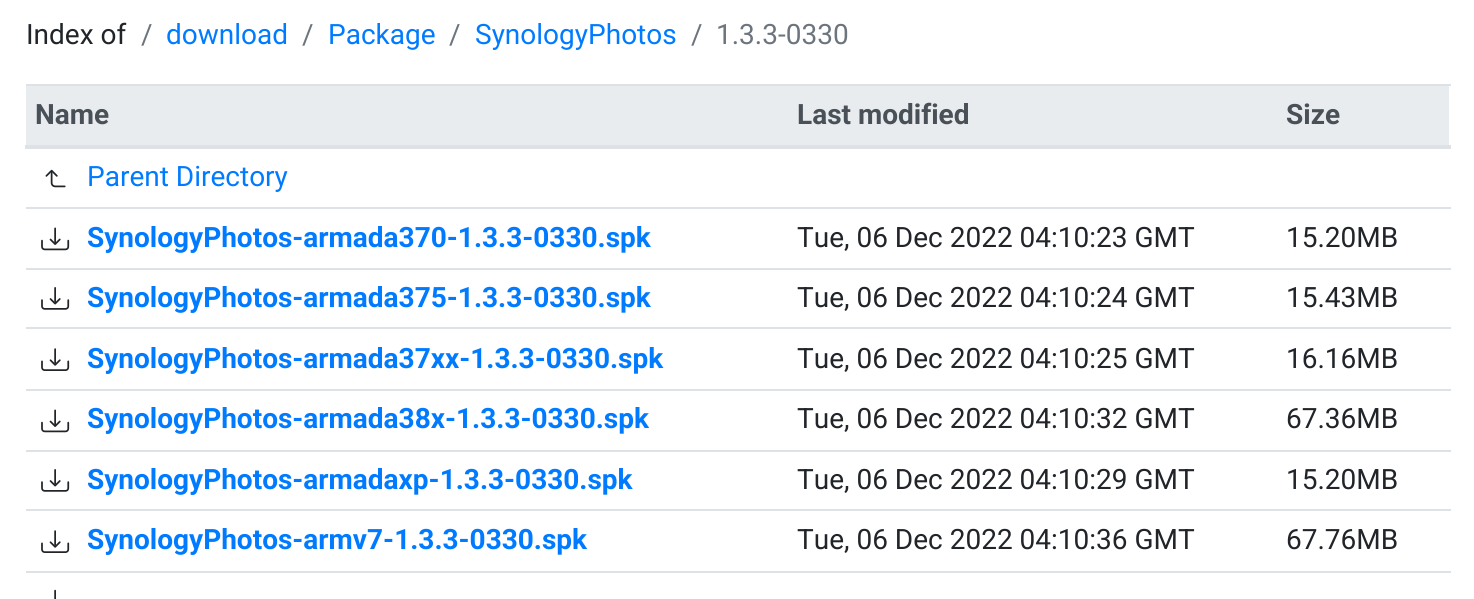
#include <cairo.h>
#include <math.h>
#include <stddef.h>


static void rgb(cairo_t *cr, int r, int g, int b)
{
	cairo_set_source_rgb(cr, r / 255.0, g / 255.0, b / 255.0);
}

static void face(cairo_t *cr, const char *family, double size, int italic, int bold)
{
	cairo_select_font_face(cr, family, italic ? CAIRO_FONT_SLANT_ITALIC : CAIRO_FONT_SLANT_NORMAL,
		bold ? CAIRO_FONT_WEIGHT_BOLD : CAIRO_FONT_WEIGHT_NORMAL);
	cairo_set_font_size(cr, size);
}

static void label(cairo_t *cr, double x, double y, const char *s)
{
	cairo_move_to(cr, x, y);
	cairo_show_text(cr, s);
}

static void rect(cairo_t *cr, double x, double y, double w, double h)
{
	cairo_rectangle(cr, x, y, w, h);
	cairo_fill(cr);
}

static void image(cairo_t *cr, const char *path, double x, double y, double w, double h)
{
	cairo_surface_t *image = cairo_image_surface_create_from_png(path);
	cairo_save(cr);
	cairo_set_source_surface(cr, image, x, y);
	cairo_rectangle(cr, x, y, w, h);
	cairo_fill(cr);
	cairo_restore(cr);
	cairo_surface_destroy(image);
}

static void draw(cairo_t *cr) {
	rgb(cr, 255, 255, 255);
	cairo_paint(cr);
	face(cr, "Roboto", 28, 0, 0);
	rgb(cr, 33, 37, 41);
	label(cr, 26, 44, "Index of");
	rgb(cr, 108, 117, 125);
	label(cr, 141, 44, "/");
	rgb(cr, 0, 123, 255);
	label(cr, 166, 44, "download");
	rgb(cr, 108, 117, 125);
	label(cr, 302, 44, "/");
	rgb(cr, 0, 123, 255);
	label(cr, 328, 44, "Package");
	rgb(cr, 108, 117, 125);
	label(cr, 449, 44, "/");
	rgb(cr, 0, 123, 255);
	label(cr, 475, 44, "SynologyPhotos");
	rgb(cr, 108, 117, 125);
	label(cr, 691, 44, "/");
	label(cr, 716, 44, "1.3.3-0330");
	rgb(cr, 233, 236, 239);
	rect(cr, 26, 86, 1423, 59);
	face(cr, "Roboto", 28, 0, 1);
	rgb(cr, 73, 80, 87);
	label(cr, 35, 124, "Name");
	label(cr, 797, 124, "Last modified");
	rgb(cr, 222, 226, 230);
	rect(cr, 26, 84, 1425, 2);
	rect(cr, 25, 145, 1426, 4);
	rgb(cr, 73, 80, 87);
	label(cr, 1286, 124, "Size");
	image(cr, "image0.png", 45, 169, 21, 19);
	face(cr, "Roboto", 28, 0, 0);
	rgb(cr, 0, 123, 255);
	label(cr, 87, 186, "Parent Directory");
	image(cr, "image1.png", 41, 227, 29, 24);
	face(cr, "Roboto", 28, 0, 1);
	label(cr, 87, 247, "SynologyPhotos-armada370-1.3.3-0330.spk");
	face(cr, "Roboto", 28, 0, 0);
	rgb(cr, 33, 37, 41);
	label(cr, 797, 247, "Tue, 06 Dec 2022 04:10:23 GMT");
	rgb(cr, 222, 226, 230);
	rect(cr, 26, 207, 1425, 2);
	rgb(cr, 33, 37, 41);
	label(cr, 1286, 247, "15.20MB");
	image(cr, "image2.png", 41, 287, 29, 23);
	face(cr, "Roboto", 28, 0, 1);
	rgb(cr, 0, 123, 255);
	label(cr, 87, 307, "SynologyPhotos-armada375-1.3.3-0330.spk");
	face(cr, "Roboto", 28, 0, 0);
	rgb(cr, 33, 37, 41);
	label(cr, 797, 307, "Tue, 06 Dec 2022 04:10:24 GMT");
	rgb(cr, 222, 226, 230);
	rect(cr, 26, 268, 1425, 2);
	rgb(cr, 33, 37, 41);
	label(cr, 1286, 307, "15.43MB");
	image(cr, "image3.png", 41, 348, 29, 23);
	face(cr, "Roboto", 28, 0, 1);
	rgb(cr, 0, 123, 255);
	label(cr, 87, 368, "SynologyPhotos-armada37xx-1.3.3-0330.spk");
	face(cr, "Roboto", 28, 0, 0);
	rgb(cr, 33, 37, 41);
	label(cr, 797, 368, "Tue, 06 Dec 2022 04:10:25 GMT");
	rgb(cr, 222, 226, 230);
	rect(cr, 26, 327, 1425, 2);
	rgb(cr, 33, 37, 41);
	label(cr, 1286, 368, "16.16MB");
	image(cr, "image1.png", 41, 409, 29, 24);
	face(cr, "Roboto", 28, 0, 1);
	rgb(cr, 0, 123, 255);
	label(cr, 87, 428, "SynologyPhotos-armada38x-1.3.3-0330.spk");
	face(cr, "Roboto", 28, 0, 0);
	rgb(cr, 33, 37, 41);
	label(cr, 797, 428, "Tue, 06 Dec 2022 04:10:32 GMT");
	rgb(cr, 222, 226, 230);
	rect(cr, 26, 389, 1425, 2);
	rgb(cr, 33, 37, 41);
	label(cr, 1286, 428, "67.36MB");
	image(cr, "image2.png", 41, 469, 29, 23);
	face(cr, "Roboto", 28, 0, 1);
	rgb(cr, 0, 123, 255);
	label(cr, 87, 489, "SynologyPhotos-armadaxp-1.3.3-0330.spk");
	face(cr, "Roboto", 28, 0, 0);
	rgb(cr, 33, 37, 41);
	label(cr, 797, 489, "Tue, 06 Dec 2022 04:10:29 GMT");
	rgb(cr, 222, 226, 230);
	rect(cr, 26, 450, 1425, 2);
	rgb(cr, 33, 37, 41);
	label(cr, 1286, 489, "15.20MB");
	image(cr, "image3.png", 41, 530, 29, 23);
	face(cr, "Roboto", 28, 0, 1);
	rgb(cr, 0, 123, 255);
	label(cr, 87, 549, "SynologyPhotos-armv7-1.3.3-0330.spk");
	face(cr, "Roboto", 28, 0, 0);
	rgb(cr, 33, 37, 41);
	label(cr, 797, 549, "Tue, 06 Dec 2022 04:10:36 GMT");
	rgb(cr, 222, 226, 230);
	rect(cr, 26, 509, 1425, 2);
	rgb(cr, 33, 37, 41);
	label(cr, 1286, 549, "67.76MB");
	rgb(cr, 222, 226, 230);
	rect(cr, 26, 571, 1425, 2);
	image(cr, "image4.png", 54, 589, 2, 10);
}

int main(void) {
	cairo_surface_t *surface = cairo_image_surface_create(CAIRO_FORMAT_RGB24, 1474, 599);
	cairo_t *cr = cairo_create(surface);
	cairo_font_options_t *options = cairo_font_options_create();
	cairo_font_options_set_hint_metrics(options, CAIRO_HINT_METRICS_OFF);
	cairo_font_options_set_hint_style(options, CAIRO_HINT_STYLE_NONE);
	cairo_set_font_options(cr, options);
	cairo_set_miter_limit(cr, 4);
	draw(cr);
	cairo_surface_write_to_png(surface, "render.png");
	cairo_font_options_destroy(options);
	cairo_destroy(cr);
	cairo_surface_destroy(surface);
	return 0;
}
